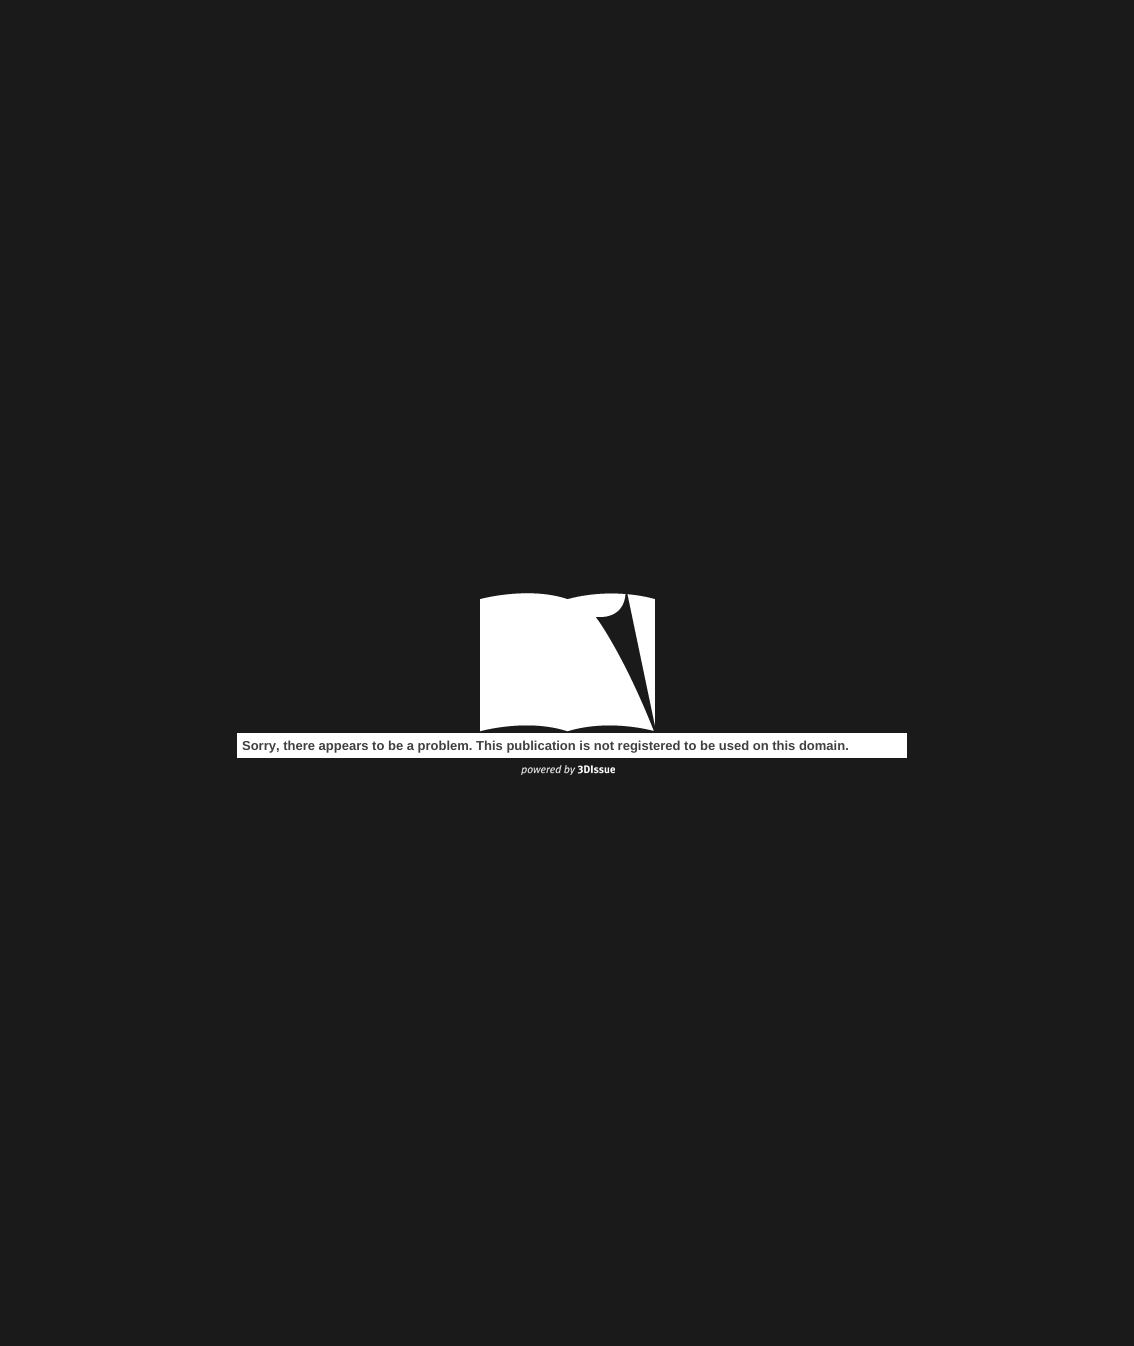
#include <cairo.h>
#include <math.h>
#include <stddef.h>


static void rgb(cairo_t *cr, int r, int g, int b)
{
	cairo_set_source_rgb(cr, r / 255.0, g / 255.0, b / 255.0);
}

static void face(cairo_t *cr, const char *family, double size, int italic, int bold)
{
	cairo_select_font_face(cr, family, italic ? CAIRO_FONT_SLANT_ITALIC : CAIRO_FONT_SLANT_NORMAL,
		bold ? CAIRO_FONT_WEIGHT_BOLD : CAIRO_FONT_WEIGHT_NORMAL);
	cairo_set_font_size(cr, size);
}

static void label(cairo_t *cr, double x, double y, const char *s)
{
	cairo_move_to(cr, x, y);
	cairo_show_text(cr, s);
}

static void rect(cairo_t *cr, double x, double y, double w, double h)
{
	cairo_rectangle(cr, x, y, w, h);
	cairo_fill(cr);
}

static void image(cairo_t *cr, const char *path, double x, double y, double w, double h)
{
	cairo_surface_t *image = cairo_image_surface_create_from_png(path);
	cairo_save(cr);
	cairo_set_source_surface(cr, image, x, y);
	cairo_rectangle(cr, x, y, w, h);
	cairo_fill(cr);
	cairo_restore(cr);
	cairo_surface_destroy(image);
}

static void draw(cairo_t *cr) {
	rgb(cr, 26, 26, 26);
	cairo_paint(cr);
	image(cr, "image0.png", 480, 593, 175, 139);
	rgb(cr, 255, 255, 255);
	rect(cr, 237, 733, 670, 25);
	face(cr, "Liberation Sans", 13, 0, 1);
	rgb(cr, 64, 64, 64);
	label(cr, 242, 750, "Sorry, there appears to be a problem. This publication is not registered to be used on this domain.");
	image(cr, "image1.png", 521, 765, 94, 10);
}

int main(void) {
	cairo_surface_t *surface = cairo_image_surface_create(CAIRO_FORMAT_RGB24, 1134, 1346);
	cairo_t *cr = cairo_create(surface);
	cairo_font_options_t *options = cairo_font_options_create();
	cairo_font_options_set_hint_metrics(options, CAIRO_HINT_METRICS_OFF);
	cairo_font_options_set_hint_style(options, CAIRO_HINT_STYLE_NONE);
	cairo_set_font_options(cr, options);
	cairo_set_miter_limit(cr, 4);
	draw(cr);
	cairo_surface_write_to_png(surface, "render.png");
	cairo_font_options_destroy(options);
	cairo_destroy(cr);
	cairo_surface_destroy(surface);
	return 0;
}
